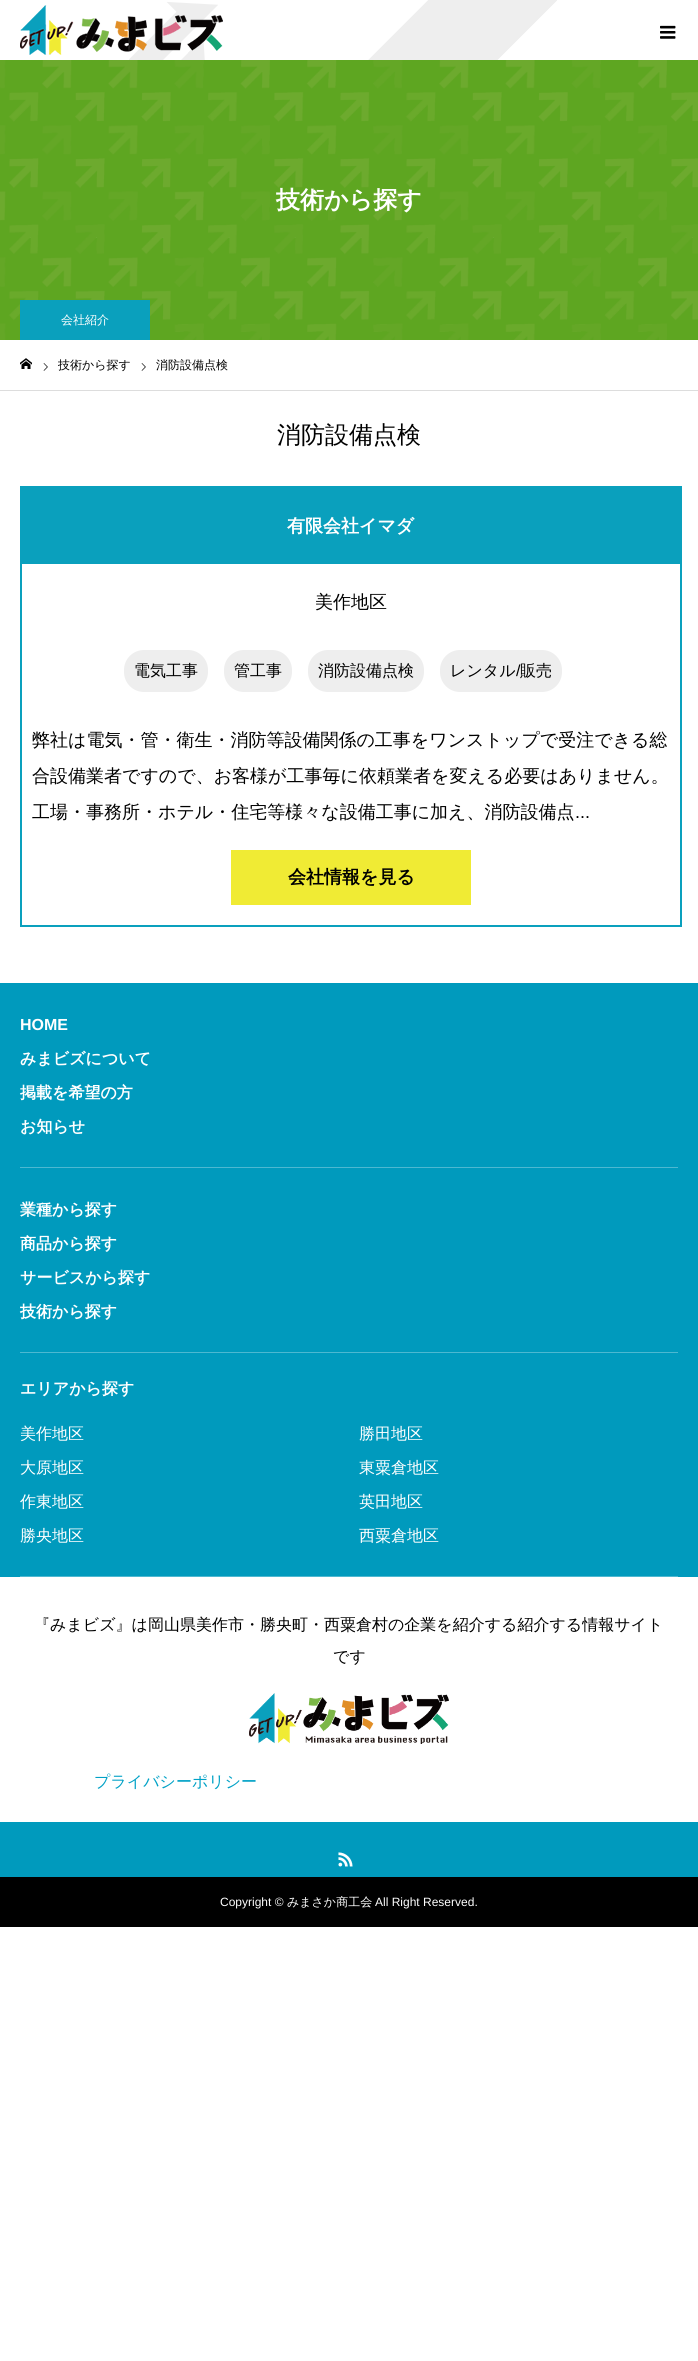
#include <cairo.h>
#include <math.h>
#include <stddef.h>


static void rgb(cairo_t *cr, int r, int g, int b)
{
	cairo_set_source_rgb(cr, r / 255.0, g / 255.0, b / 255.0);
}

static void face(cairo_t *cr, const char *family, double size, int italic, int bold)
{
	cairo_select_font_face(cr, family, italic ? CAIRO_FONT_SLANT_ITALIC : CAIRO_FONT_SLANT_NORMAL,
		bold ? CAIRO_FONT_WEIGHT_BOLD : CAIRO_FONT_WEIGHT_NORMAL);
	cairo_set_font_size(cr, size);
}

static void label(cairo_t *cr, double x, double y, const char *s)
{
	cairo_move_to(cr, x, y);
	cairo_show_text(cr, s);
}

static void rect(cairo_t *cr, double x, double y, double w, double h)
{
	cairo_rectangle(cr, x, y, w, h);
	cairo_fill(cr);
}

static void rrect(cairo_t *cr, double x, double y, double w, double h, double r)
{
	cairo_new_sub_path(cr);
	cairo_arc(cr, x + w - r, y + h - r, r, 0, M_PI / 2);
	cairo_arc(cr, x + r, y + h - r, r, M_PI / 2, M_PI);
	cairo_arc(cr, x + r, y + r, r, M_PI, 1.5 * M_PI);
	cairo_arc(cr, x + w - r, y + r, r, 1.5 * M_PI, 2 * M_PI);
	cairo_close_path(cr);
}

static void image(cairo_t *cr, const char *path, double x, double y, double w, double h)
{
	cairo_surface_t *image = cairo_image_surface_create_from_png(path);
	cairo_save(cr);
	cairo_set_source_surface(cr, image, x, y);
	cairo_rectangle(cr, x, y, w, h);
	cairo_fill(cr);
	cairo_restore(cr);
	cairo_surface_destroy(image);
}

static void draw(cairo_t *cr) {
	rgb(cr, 255, 255, 255);
	cairo_paint(cr);
	image(cr, "image0.png", 129, 0, 428, 60);
	image(cr, "image1.png", 20, 5, 203, 50);
	image(cr, "image2.png", 660, 25, 16, 14);
	image(cr, "image3.png", 0, 60, 698, 280);
	face(cr, "WenQuanYi Zen Hei", 24, 0, 1);
	rgb(cr, 255, 255, 255);
	label(cr, 276, 208, "技術から探す");
	rgb(cr, 10, 160, 189);
	rect(cr, 20, 300, 130, 40);
	face(cr, "WenQuanYi Zen Hei Medium", 12, 0, 0);
	rgb(cr, 255, 255, 255);
	label(cr, 61, 324, "会社紹介");
	rgb(cr, 221, 221, 221);
	rect(cr, 0, 390, 698, 1);
	image(cr, "image4.png", 20, 358, 12, 11);
	image(cr, "image5.png", 43, 363, 5, 8);
	rgb(cr, 0, 0, 0);
	label(cr, 58, 369, "技術から探す");
	image(cr, "image5.png", 141, 363, 5, 8);
	label(cr, 156, 369, "消防設備点検");
	face(cr, "WenQuanYi Zen Hei Medium", 24, 0, 0);
	label(cr, 277, 443, "消防設備点検");
	cairo_rectangle(cr, 21, 487, 660, 439);
	rgb(cr, 10, 160, 189);
	cairo_stroke(cr);
	rect(cr, 22, 488, 658, 76);
	face(cr, "WenQuanYi Zen Hei", 18, 0, 1);
	rgb(cr, 255, 255, 255);
	label(cr, 287, 532, "有限会社イマダ");
	face(cr, "WenQuanYi Zen Hei Medium", 18, 0, 0);
	rgb(cr, 0, 0, 0);
	label(cr, 315, 608, "美作地区");
	rgb(cr, 238, 238, 238);
	rrect(cr, 124, 650, 84, 42, 20);
	cairo_fill(cr);
	face(cr, "WenQuanYi Zen Hei Medium", 16, 0, 0);
	rgb(cr, 0, 0, 0);
	label(cr, 134, 676, "電気工事");
	rgb(cr, 238, 238, 238);
	rrect(cr, 224, 650, 68, 42, 20);
	cairo_fill(cr);
	rgb(cr, 0, 0, 0);
	label(cr, 234, 676, "管工事");
	rgb(cr, 238, 238, 238);
	rrect(cr, 308, 650, 116, 42, 20);
	cairo_fill(cr);
	rgb(cr, 0, 0, 0);
	label(cr, 318, 676, "消防設備点検");
	rgb(cr, 238, 238, 238);
	rrect(cr, 440, 650, 122, 42, 20);
	cairo_fill(cr);
	rgb(cr, 0, 0, 0);
	label(cr, 450, 676, "レンタル");
	face(cr, "Liberation Sans", 16, 0, 0);
	label(cr, 516, 676, "/");
	face(cr, "WenQuanYi Zen Hei Medium", 16, 0, 0);
	label(cr, 520, 676, "販売");
	face(cr, "WenQuanYi Zen Hei Medium", 18, 0, 0);
	label(cr, 32, 746, "弊社は電気・管・衛生・消防等設備関係の工事をワンストップで受注できる総");
	label(cr, 32, 782, "合設備業者ですので、お客様が工事毎に依頼業者を変える必要はありません。");
	label(cr, 32, 818, "工場・事務所・ホテル・住宅等様々な設備工事に加え、消防設備点");
	face(cr, "Liberation Sans", 18, 0, 0);
	label(cr, 575, 818, "...");
	rgb(cr, 240, 235, 52);
	rect(cr, 231, 850, 240, 55);
	face(cr, "WenQuanYi Zen Hei", 18, 0, 1);
	rgb(cr, 0, 0, 0);
	label(cr, 288, 883, "会社情報を見る");
	rgb(cr, 0, 154, 189);
	rect(cr, 0, 983, 698, 594);
	rgb(cr, 77, 184, 209);
	rect(cr, 20, 1167, 658, 1);
	face(cr, "Liberation Sans", 16, 0, 1);
	rgb(cr, 255, 255, 255);
	label(cr, 20, 1030, "HOME");
	face(cr, "WenQuanYi Zen Hei", 16, 0, 1);
	label(cr, 20, 1064, "みまビズについて");
	label(cr, 20, 1098, "掲載を希望の方");
	label(cr, 20, 1132, "お知らせ");
	rgb(cr, 77, 184, 209);
	rect(cr, 20, 1352, 658, 1);
	rgb(cr, 255, 255, 255);
	label(cr, 20, 1215, "業種から探す");
	label(cr, 20, 1249, "商品から探す");
	label(cr, 20, 1283, "サービスから探す");
	label(cr, 20, 1317, "技術から探す");
	rgb(cr, 77, 184, 209);
	rect(cr, 20, 1576, 658, 1);
	rgb(cr, 255, 255, 255);
	label(cr, 20, 1394, "エリアから探す");
	face(cr, "WenQuanYi Zen Hei Medium", 16, 0, 0);
	label(cr, 20, 1439, "美作地区");
	label(cr, 359, 1439, "勝田地区");
	label(cr, 20, 1473, "大原地区");
	label(cr, 359, 1473, "東粟倉地区");
	label(cr, 20, 1507, "作東地区");
	label(cr, 359, 1507, "英田地区");
	label(cr, 20, 1541, "勝央地区");
	label(cr, 359, 1541, "西粟倉地区");
	rgb(cr, 0, 0, 0);
	label(cr, 34, 1630, "『みまビズ』は岡山県美作市・勝央町・西粟倉村の企業を紹介する紹介する情報サイト");
	label(cr, 333, 1662, "です");
	image(cr, "image6.png", 249, 1693, 200, 51);
	rgb(cr, 0, 161, 198);
	label(cr, 94, 1787, "プライバシーポリシー");
	rgb(cr, 0, 154, 189);
	rect(cr, 0, 1822, 698, 55);
	image(cr, "image7.png", 338, 1852, 15, 15);
	rgb(cr, 0, 0, 0);
	rect(cr, 0, 1877, 698, 50);
	face(cr, "Liberation Sans", 12, 0, 0);
	rgb(cr, 255, 255, 255);
	label(cr, 220, 1906, "Copyright ©");
	face(cr, "WenQuanYi Zen Hei Medium", 12, 0, 0);
	label(cr, 287, 1906, "みまさか商工会");
	face(cr, "Liberation Sans", 12, 0, 0);
	label(cr, 375, 1906, "All Right Reserved.");
}

int main(void) {
	cairo_surface_t *surface = cairo_image_surface_create(CAIRO_FORMAT_RGB24, 698, 2361);
	cairo_t *cr = cairo_create(surface);
	cairo_font_options_t *options = cairo_font_options_create();
	cairo_font_options_set_hint_metrics(options, CAIRO_HINT_METRICS_OFF);
	cairo_font_options_set_hint_style(options, CAIRO_HINT_STYLE_NONE);
	cairo_set_font_options(cr, options);
	cairo_set_miter_limit(cr, 4);
	draw(cr);
	cairo_surface_write_to_png(surface, "render.png");
	cairo_font_options_destroy(options);
	cairo_destroy(cr);
	cairo_surface_destroy(surface);
	return 0;
}
